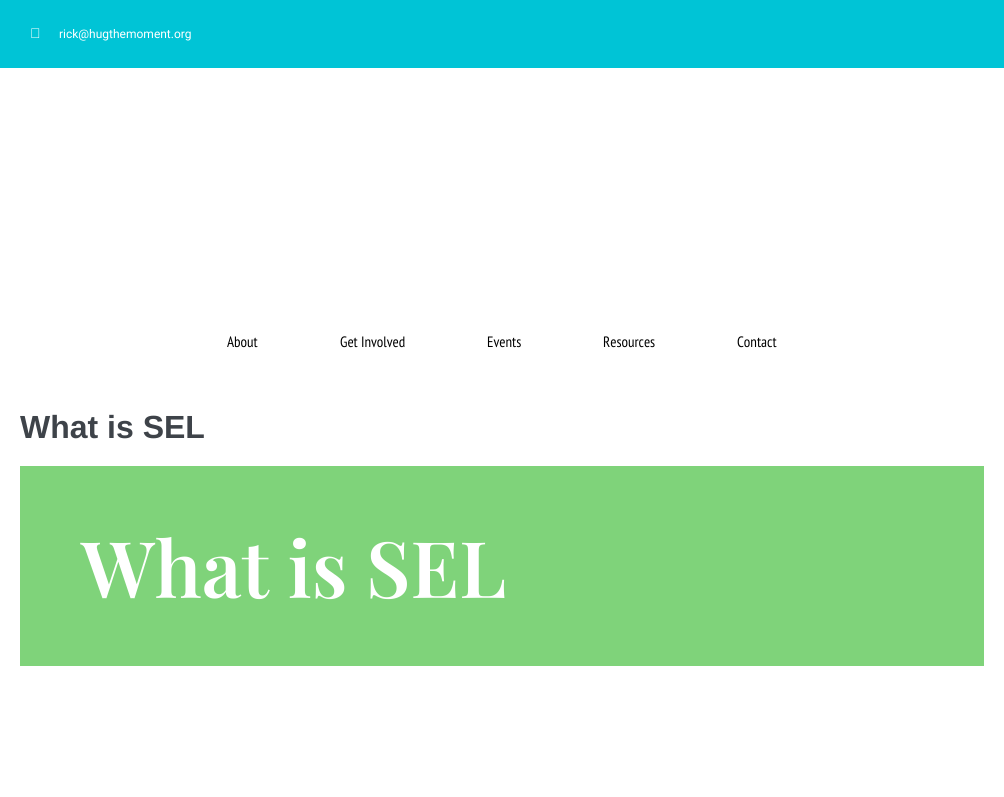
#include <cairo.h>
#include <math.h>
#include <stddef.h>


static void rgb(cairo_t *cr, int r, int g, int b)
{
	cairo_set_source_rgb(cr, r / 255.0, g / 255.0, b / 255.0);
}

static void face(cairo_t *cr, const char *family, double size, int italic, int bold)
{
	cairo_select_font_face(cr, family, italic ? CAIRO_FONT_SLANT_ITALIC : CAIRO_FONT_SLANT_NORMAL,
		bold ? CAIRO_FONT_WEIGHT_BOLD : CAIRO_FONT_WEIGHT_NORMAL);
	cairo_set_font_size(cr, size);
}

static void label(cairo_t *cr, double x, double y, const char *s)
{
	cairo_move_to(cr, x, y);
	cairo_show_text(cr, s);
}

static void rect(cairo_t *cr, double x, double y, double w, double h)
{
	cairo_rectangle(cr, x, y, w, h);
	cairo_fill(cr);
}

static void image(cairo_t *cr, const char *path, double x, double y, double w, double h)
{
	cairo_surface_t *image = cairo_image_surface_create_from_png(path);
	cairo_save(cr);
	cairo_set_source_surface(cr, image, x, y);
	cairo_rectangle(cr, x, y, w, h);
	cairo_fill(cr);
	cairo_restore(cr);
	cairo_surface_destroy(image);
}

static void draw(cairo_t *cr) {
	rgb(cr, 255, 255, 255);
	cairo_paint(cr);
	rgb(cr, 0, 196, 214);
	rect(cr, 0, 0, 1004, 68);
	image(cr, "image0.png", 31, 28, 9, 10);
	face(cr, "Roboto", 12, 0, 0);
	rgb(cr, 255, 255, 255);
	label(cr, 59, 38, "rick@hugthemoment.org");
	face(cr, "PT Sans Narrow", 15, 0, 0);
	rgb(cr, 0, 0, 0);
	label(cr, 227, 347, "About");
	label(cr, 340, 347, "Get Involved");
	label(cr, 487, 347, "Events");
	label(cr, 603, 347, "Resources");
	label(cr, 737, 347, "Contact");
	face(cr, "Liberation Sans", 32, 0, 1);
	rgb(cr, 62, 67, 73);
	label(cr, 20, 438, "What is SEL");
	rgb(cr, 127, 211, 122);
	rect(cr, 20, 466, 964, 200);
	face(cr, "Playfair Display SemiBold", 78, 0, 0);
	rgb(cr, 255, 255, 255);
	label(cr, 81, 598, "What is SEL");
}

int main(void) {
	cairo_surface_t *surface = cairo_image_surface_create(CAIRO_FORMAT_RGB24, 1004, 797);
	cairo_t *cr = cairo_create(surface);
	cairo_font_options_t *options = cairo_font_options_create();
	cairo_font_options_set_hint_metrics(options, CAIRO_HINT_METRICS_OFF);
	cairo_font_options_set_hint_style(options, CAIRO_HINT_STYLE_NONE);
	cairo_set_font_options(cr, options);
	cairo_set_miter_limit(cr, 4);
	draw(cr);
	cairo_surface_write_to_png(surface, "render.png");
	cairo_font_options_destroy(options);
	cairo_destroy(cr);
	cairo_surface_destroy(surface);
	return 0;
}
